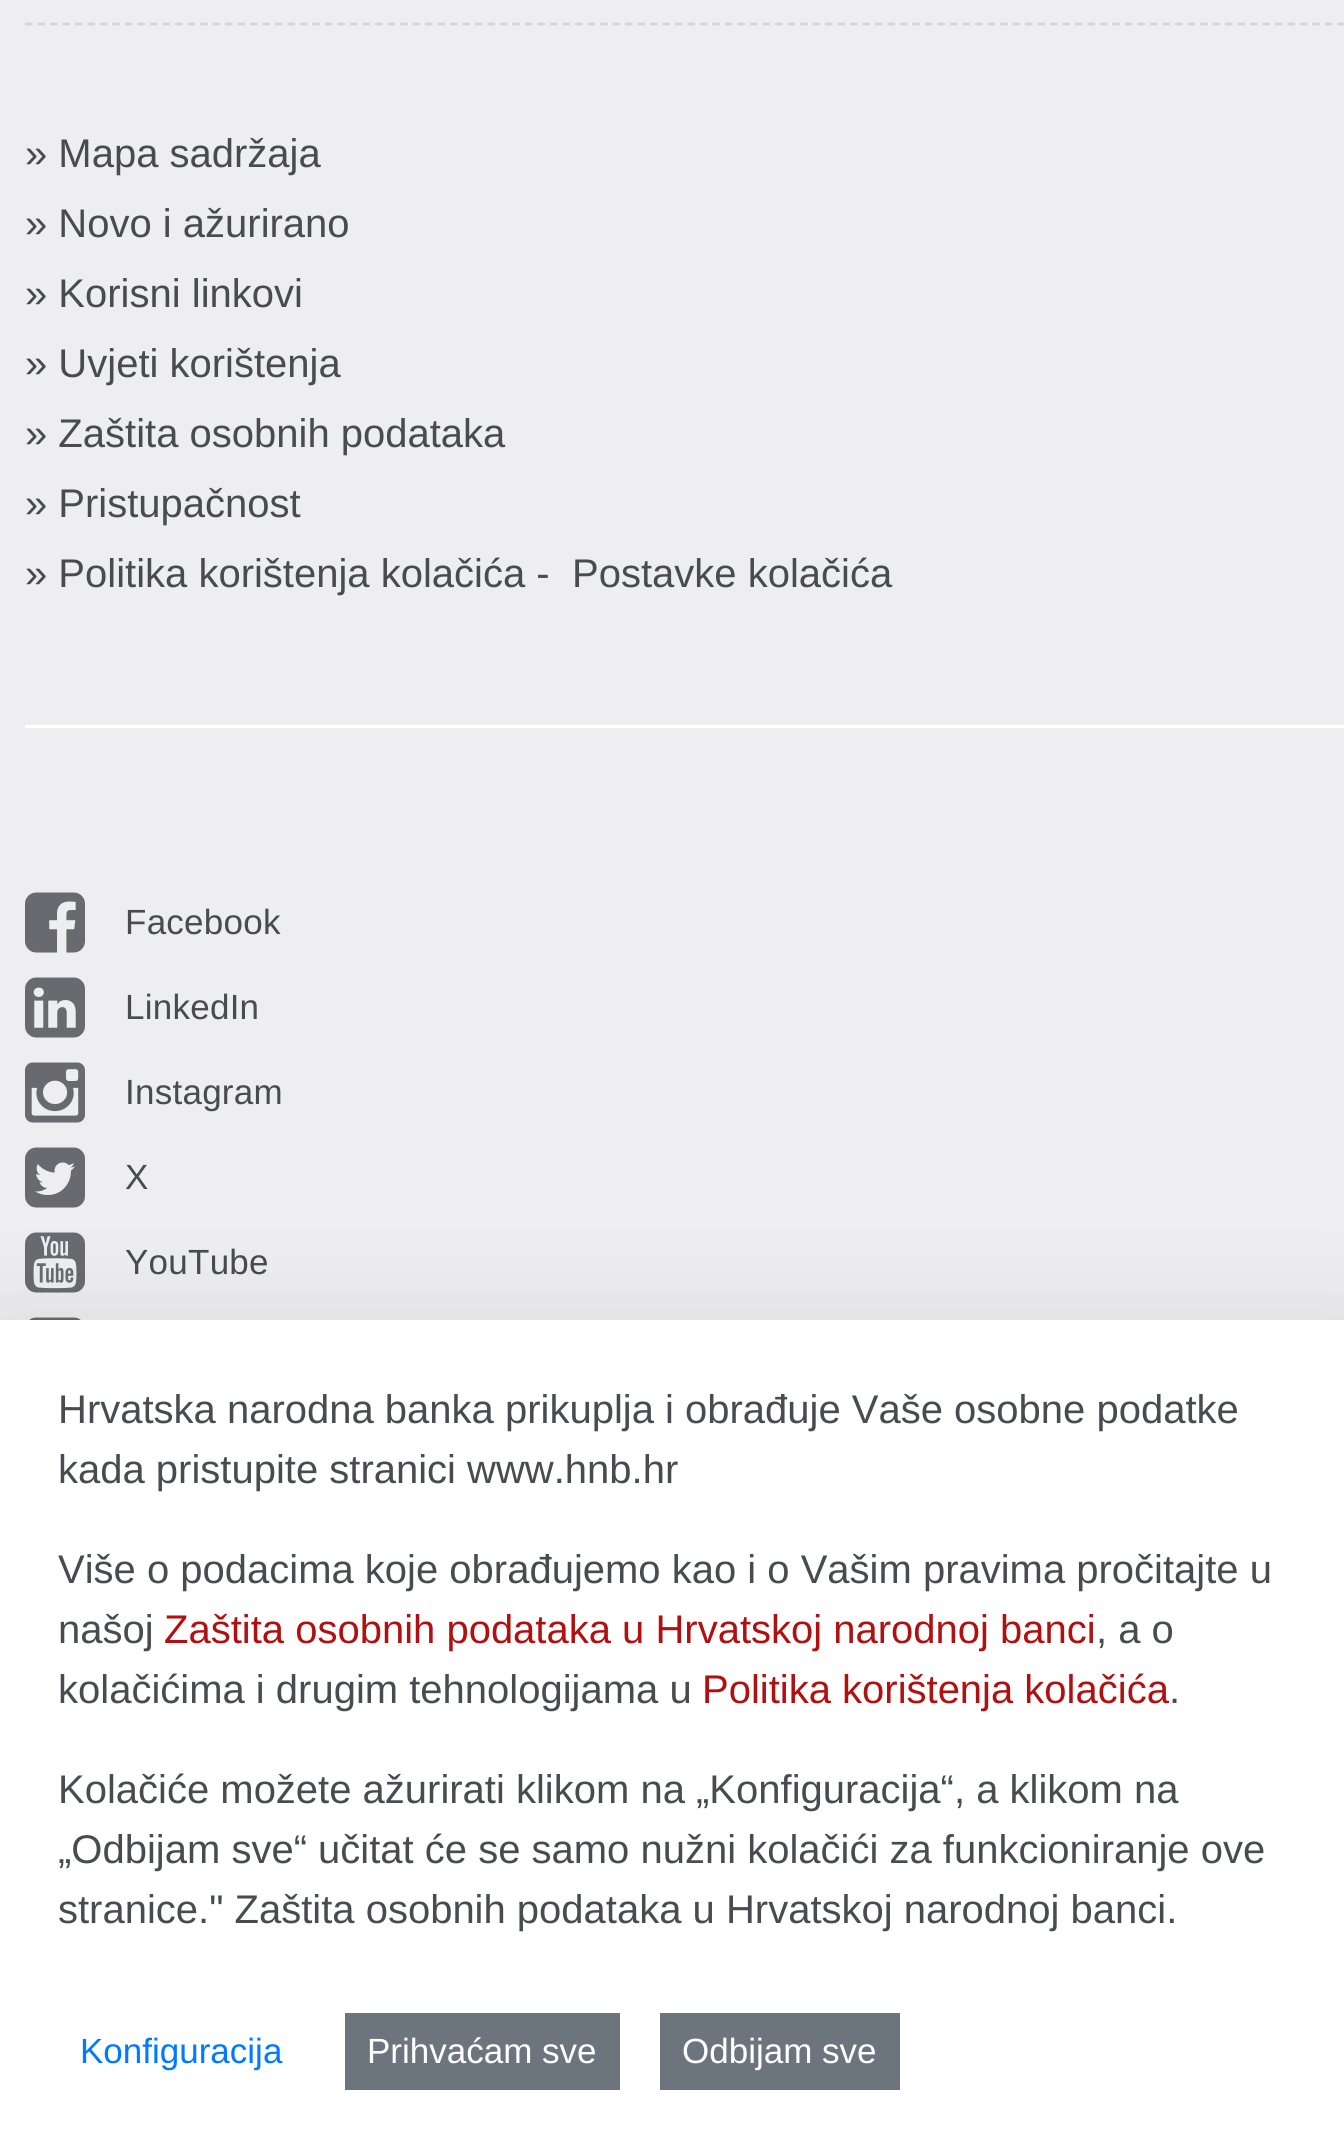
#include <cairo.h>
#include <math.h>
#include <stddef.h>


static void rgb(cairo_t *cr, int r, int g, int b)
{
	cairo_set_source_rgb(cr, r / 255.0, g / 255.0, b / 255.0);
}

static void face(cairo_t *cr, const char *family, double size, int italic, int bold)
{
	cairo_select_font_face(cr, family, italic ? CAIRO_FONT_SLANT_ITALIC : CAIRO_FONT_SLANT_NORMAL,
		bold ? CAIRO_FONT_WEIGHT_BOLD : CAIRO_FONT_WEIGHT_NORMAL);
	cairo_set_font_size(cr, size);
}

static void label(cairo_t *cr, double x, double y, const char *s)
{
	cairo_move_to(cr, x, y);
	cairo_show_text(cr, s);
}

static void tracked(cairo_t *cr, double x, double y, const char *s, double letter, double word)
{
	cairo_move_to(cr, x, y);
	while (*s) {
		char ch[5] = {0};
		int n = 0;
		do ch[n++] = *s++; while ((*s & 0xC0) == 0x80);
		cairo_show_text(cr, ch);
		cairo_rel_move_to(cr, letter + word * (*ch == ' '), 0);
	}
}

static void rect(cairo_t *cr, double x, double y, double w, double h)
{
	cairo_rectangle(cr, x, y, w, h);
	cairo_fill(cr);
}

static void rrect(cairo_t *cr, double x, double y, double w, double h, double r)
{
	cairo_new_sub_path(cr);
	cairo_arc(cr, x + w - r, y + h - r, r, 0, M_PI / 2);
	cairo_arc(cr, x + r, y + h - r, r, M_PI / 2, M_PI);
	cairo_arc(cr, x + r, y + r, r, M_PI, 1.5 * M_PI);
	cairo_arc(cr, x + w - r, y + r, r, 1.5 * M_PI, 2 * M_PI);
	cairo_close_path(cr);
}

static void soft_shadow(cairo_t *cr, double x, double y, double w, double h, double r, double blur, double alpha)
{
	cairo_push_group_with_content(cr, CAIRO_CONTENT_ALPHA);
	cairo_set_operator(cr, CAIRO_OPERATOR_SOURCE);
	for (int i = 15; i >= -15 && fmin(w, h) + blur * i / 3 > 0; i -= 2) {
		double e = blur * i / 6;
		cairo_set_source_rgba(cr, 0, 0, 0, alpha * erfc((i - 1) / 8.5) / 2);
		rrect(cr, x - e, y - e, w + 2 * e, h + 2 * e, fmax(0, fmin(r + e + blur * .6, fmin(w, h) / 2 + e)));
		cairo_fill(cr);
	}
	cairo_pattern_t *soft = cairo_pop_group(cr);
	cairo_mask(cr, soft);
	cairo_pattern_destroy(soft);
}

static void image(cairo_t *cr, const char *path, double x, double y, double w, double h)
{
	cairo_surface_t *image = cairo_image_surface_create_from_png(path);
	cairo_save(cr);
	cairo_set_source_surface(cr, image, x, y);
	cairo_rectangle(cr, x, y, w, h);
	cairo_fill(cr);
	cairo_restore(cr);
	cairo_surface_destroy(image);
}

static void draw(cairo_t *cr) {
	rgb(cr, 238, 238, 240);
	cairo_paint(cr);
	cairo_new_path(cr);
	cairo_move_to(cr, 25, 24);
	cairo_line_to(cr, 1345, 24);
	rgb(cr, 212, 212, 216);
	cairo_set_line_width(cr, 2.5);
	cairo_set_dash(cr, (double[]){7.5, 5}, 2, 0);
	cairo_stroke(cr);
	face(cr, "Liberation Sans", 40, 0, 0);
	rgb(cr, 72, 76, 80);
	label(cr, 25, 167, "» Mapa sadržaja");
	label(cr, 25, 237, "» Novo i ažurirano");
	label(cr, 25, 307, "» Korisni linkovi");
	label(cr, 25, 377, "» Uvjeti korištenja");
	label(cr, 25, 447, "» Zaštita osobnih podataka");
	label(cr, 25, 517, "» Pristupačnost");
	label(cr, 25, 587, "» Politika korištenja kolačića -");
	label(cr, 572, 587, "Postavke kolačića");
	rgb(cr, 255, 255, 255);
	rect(cr, 25, 725, 1319, 3);
	image(cr, "image0.png", 25, 892, 60, 61);
	face(cr, "Liberation Sans", 35, 0, 0);
	rgb(cr, 72, 76, 80);
	tracked(cr, 125, 934, "Facebook", 0.25, 0);
	image(cr, "image1.png", 25, 977, 60, 61);
	tracked(cr, 125, 1019, "LinkedIn", 0.25, 0);
	image(cr, "image2.png", 25, 1062, 60, 61);
	tracked(cr, 125, 1104, "Instagram", 0.25, 0);
	image(cr, "image3.png", 25, 1147, 60, 61);
	tracked(cr, 125, 1189, "X", 0.25, 0);
	image(cr, "image4.png", 25, 1232, 60, 61);
	tracked(cr, 125, 1274, "YouTube", 0.25, 0);
	image(cr, "image5.png", 29, 1317, 52, 3);
	rgb(cr, 0, 0, 0);
	soft_shadow(cr, 0, 1360, 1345, 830, 0, 60, 0.18);
	rgb(cr, 255, 255, 255);
	rect(cr, 0, 1320, 1344, 828);
	face(cr, "Liberation Sans", 40, 0, 0);
	rgb(cr, 72, 76, 80);
	label(cr, 58, 1423, "Hrvatska narodna banka prikuplja i obrađuje Vaše osobne podatke");
	label(cr, 58, 1483, "kada pristupite stranici www.hnb.hr");
	label(cr, 58, 1583, "Više o podacima koje obrađujemo kao i o Vašim pravima pročitajte u");
	label(cr, 58, 1643, "našoj");
	rgb(cr, 176, 16, 16);
	label(cr, 164, 1643, "Zaštita osobnih podataka u Hrvatskoj narodnoj banci");
	rgb(cr, 72, 76, 80);
	label(cr, 1096, 1643, ", a o");
	label(cr, 58, 1703, "kolačićima i drugim tehnologijama u");
	rgb(cr, 176, 16, 16);
	label(cr, 702, 1703, "Politika korištenja kolačića");
	rgb(cr, 72, 76, 80);
	label(cr, 1169, 1703, ".");
	label(cr, 58, 1803, "Kolačiće možete ažurirati klikom na „Konfiguracija“, a klikom na");
	label(cr, 58, 1863, "„Odbijam sve“ učitat će se samo nužni kolačići za funkcioniranje ove");
	label(cr, 58, 1923, "stranice.\" Zaštita osobnih podataka u Hrvatskoj narodnoj banci.");
	face(cr, "Liberation Sans", 35, 0, 0);
	rgb(cr, 0, 123, 255);
	label(cr, 80, 2063, "Konfiguracija");
	rgb(cr, 108, 117, 125);
	rect(cr, 345, 2013, 275, 77);
	rgb(cr, 255, 255, 255);
	label(cr, 367, 2063, "Prihvaćam sve");
	rgb(cr, 108, 117, 125);
	rect(cr, 660, 2013, 240, 77);
	rgb(cr, 255, 255, 255);
	label(cr, 682, 2063, "Odbijam sve");
}

int main(void) {
	cairo_surface_t *surface = cairo_image_surface_create(CAIRO_FORMAT_RGB24, 1344, 2148);
	cairo_t *cr = cairo_create(surface);
	cairo_font_options_t *options = cairo_font_options_create();
	cairo_font_options_set_hint_metrics(options, CAIRO_HINT_METRICS_OFF);
	cairo_font_options_set_hint_style(options, CAIRO_HINT_STYLE_NONE);
	cairo_set_font_options(cr, options);
	cairo_set_miter_limit(cr, 4);
	draw(cr);
	cairo_surface_write_to_png(surface, "render.png");
	cairo_font_options_destroy(options);
	cairo_destroy(cr);
	cairo_surface_destroy(surface);
	return 0;
}
